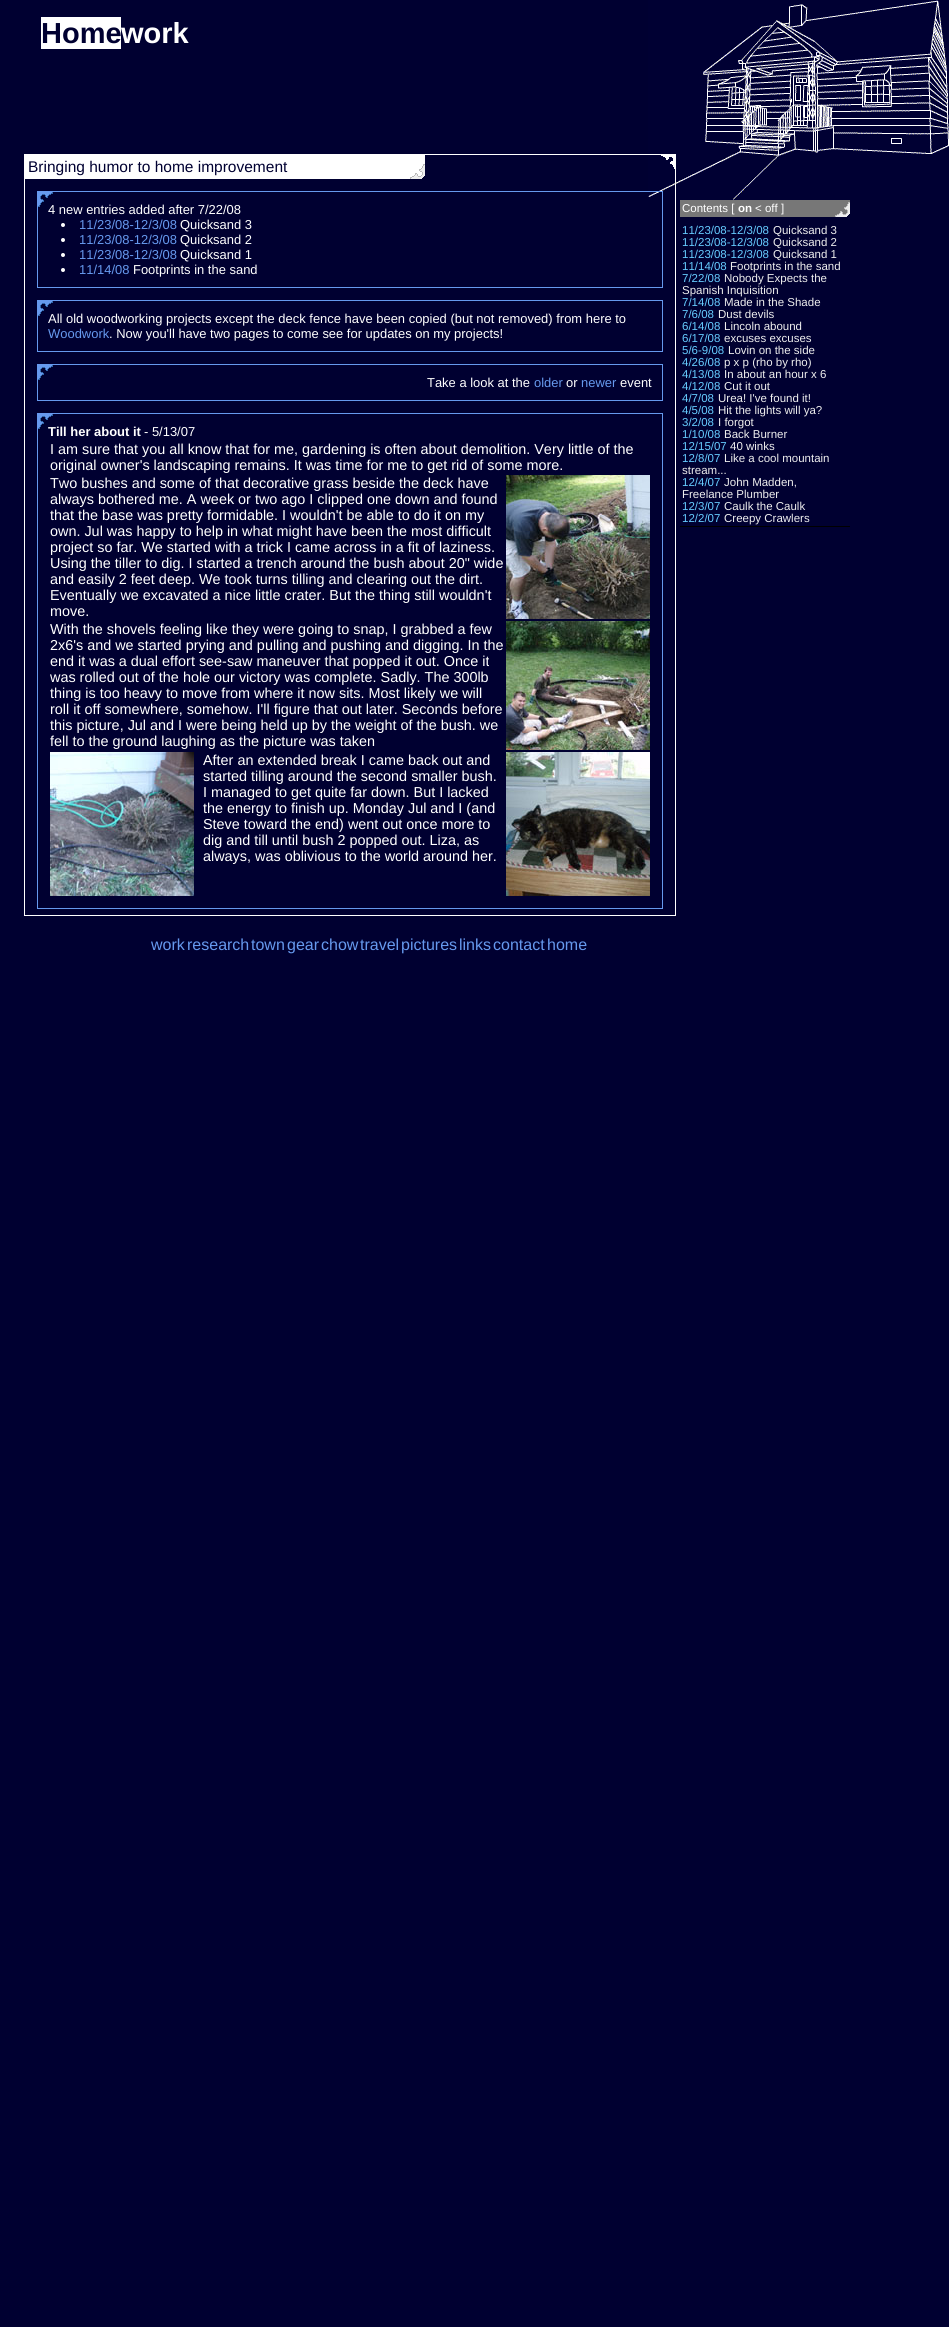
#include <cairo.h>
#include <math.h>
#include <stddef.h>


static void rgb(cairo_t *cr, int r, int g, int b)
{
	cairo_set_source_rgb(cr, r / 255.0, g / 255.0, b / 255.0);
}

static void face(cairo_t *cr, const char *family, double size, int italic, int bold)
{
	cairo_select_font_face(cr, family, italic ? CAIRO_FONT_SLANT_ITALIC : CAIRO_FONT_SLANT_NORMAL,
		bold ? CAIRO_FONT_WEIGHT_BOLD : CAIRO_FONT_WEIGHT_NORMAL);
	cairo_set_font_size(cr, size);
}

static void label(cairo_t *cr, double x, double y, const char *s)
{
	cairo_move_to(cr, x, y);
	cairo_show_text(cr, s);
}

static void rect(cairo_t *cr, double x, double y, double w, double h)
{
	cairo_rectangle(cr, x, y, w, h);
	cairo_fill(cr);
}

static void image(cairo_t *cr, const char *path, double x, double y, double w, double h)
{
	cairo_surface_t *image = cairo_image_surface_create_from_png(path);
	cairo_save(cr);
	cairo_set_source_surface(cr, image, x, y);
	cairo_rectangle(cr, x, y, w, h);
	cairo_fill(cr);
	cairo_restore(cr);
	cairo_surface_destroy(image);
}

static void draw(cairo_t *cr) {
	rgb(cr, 0, 0, 49);
	cairo_paint(cr);
	image(cr, "image0.png", 648, 0, 301, 200);
	rgb(cr, 255, 255, 255);
	rect(cr, 41, 17, 80, 32);
	face(cr, "Liberation Sans", 29, 0, 1);
	rgb(cr, 0, 0, 49);
	label(cr, 41, 43, "Home");
	rgb(cr, 255, 255, 255);
	label(cr, 121, 43, "work");
	image(cr, "image1.png", 661, 155, 14, 14);
	cairo_rectangle(cr, 24.5, 154.5, 651, 761);
	cairo_set_line_width(cr, 1);
	cairo_stroke(cr);
	rect(cr, 25, 155, 400, 24);
	image(cr, "image2.png", 410, 164, 15, 15);
	face(cr, "Liberation Sans", 15.5, 0, 0);
	rgb(cr, 0, 0, 49);
	label(cr, 28, 172, "Bringing humor to home improvement");
	image(cr, "image3.png", 38, 192, 15, 15);
	cairo_rectangle(cr, 37.5, 191.5, 625, 96);
	rgb(cr, 102, 153, 238);
	cairo_stroke(cr);
	face(cr, "Liberation Sans", 12.95, 0, 0);
	rgb(cr, 255, 255, 255);
	label(cr, 48, 214, "4 new entries added after 7/22/08");
	cairo_new_path(cr);
	cairo_arc(cr, 63, 225, 2, 0, 2 * M_PI);
	cairo_fill(cr);
	rgb(cr, 102, 153, 238);
	label(cr, 79, 229, "11/23/08-12/3/08");
	rgb(cr, 255, 255, 255);
	label(cr, 180, 229, "Quicksand 3");
	cairo_new_path(cr);
	cairo_arc(cr, 63, 240, 2, 0, 2 * M_PI);
	cairo_fill(cr);
	rgb(cr, 102, 153, 238);
	label(cr, 79, 244, "11/23/08-12/3/08");
	rgb(cr, 255, 255, 255);
	label(cr, 180, 244, "Quicksand 2");
	cairo_new_path(cr);
	cairo_arc(cr, 63, 255, 2, 0, 2 * M_PI);
	cairo_fill(cr);
	rgb(cr, 102, 153, 238);
	label(cr, 79, 259, "11/23/08-12/3/08");
	rgb(cr, 255, 255, 255);
	label(cr, 180, 259, "Quicksand 1");
	cairo_new_path(cr);
	cairo_arc(cr, 63, 270, 2, 0, 2 * M_PI);
	cairo_fill(cr);
	rgb(cr, 102, 153, 238);
	label(cr, 79, 274, "11/14/08");
	rgb(cr, 255, 255, 255);
	label(cr, 133, 274, "Footprints in the sand");
	image(cr, "image3.png", 38, 301, 15, 15);
	cairo_rectangle(cr, 37.5, 300.5, 625, 51);
	rgb(cr, 102, 153, 238);
	cairo_stroke(cr);
	rgb(cr, 255, 255, 255);
	label(cr, 48, 323, "All old woodworking projects except the deck fence have been copied (but not removed) from here to");
	rgb(cr, 102, 153, 238);
	label(cr, 48, 338, "Woodwork");
	rgb(cr, 255, 255, 255);
	label(cr, 109, 338, ". Now you'll have two pages to come see for updates on my projects!");
	image(cr, "image3.png", 38, 365, 15, 15);
	cairo_rectangle(cr, 37.5, 364.5, 625, 36);
	rgb(cr, 102, 153, 238);
	cairo_stroke(cr);
	rgb(cr, 255, 255, 255);
	label(cr, 427, 387, "Take a look at the");
	rgb(cr, 102, 153, 238);
	label(cr, 534, 387, "older");
	rgb(cr, 255, 255, 255);
	label(cr, 566, 387, "or");
	rgb(cr, 102, 153, 238);
	label(cr, 581, 387, "newer");
	rgb(cr, 255, 255, 255);
	label(cr, 620, 387, "event");
	image(cr, "image3.png", 38, 414, 15, 15);
	cairo_rectangle(cr, 37.5, 413.5, 625, 495);
	rgb(cr, 102, 153, 238);
	cairo_stroke(cr);
	face(cr, "Liberation Sans", 12.95, 0, 1);
	rgb(cr, 255, 255, 255);
	label(cr, 48, 436, "Till her about it");
	face(cr, "Liberation Sans", 12.95, 0, 0);
	label(cr, 144, 436, "- 5/13/07");
	face(cr, "Liberation Sans", 14.4, 0, 0);
	label(cr, 50, 454, "I am sure that you all know that for me, gardening is often about demolition. Very little of the");
	label(cr, 50, 470, "original owner's landscaping remains. It was time for me to get rid of some more.");
	label(cr, 50, 488, "Two bushes and some of that decorative grass beside the deck have");
	label(cr, 50, 504, "always bothered me. A week or two ago I clipped one down and found");
	label(cr, 50, 520, "that the base was pretty formidable. I wouldn't be able to do it on my");
	label(cr, 50, 536, "own. Jul was happy to help in what might have been the most difficult");
	label(cr, 50, 552, "project so far. We started with a trick I came across in a fit of laziness.");
	label(cr, 50, 568, "Using the tiller to dig. I started a trench around the bush about 20\" wide");
	label(cr, 50, 584, "and easily 2 feet deep. We took turns tilling and clearing out the dirt.");
	label(cr, 50, 600, "Eventually we excavated a nice little crater. But the thing still wouldn't");
	label(cr, 50, 616, "move.");
	image(cr, "image4.png", 506, 475, 144, 144);
	label(cr, 50, 634, "With the shovels feeling like they were going to snap, I grabbed a few");
	label(cr, 50, 650, "2x6's and we started prying and pulling and pushing and digging. In the");
	label(cr, 50, 666, "end it was a dual effort see-saw maneuver that popped it out. Once it");
	label(cr, 50, 682, "was rolled out of the hole our victory was complete. Sadly. The 300lb");
	label(cr, 50, 698, "thing is too heavy to move from where it now sits. Most likely we will");
	label(cr, 50, 714, "roll it off somewhere, somehow. I'll figure that out later. Seconds before");
	label(cr, 50, 730, "this picture, Jul and I were being held up by the weight of the bush. we");
	label(cr, 50, 746, "fell to the ground laughing as the picture was taken");
	image(cr, "image5.png", 506, 621, 144, 129);
	image(cr, "image6.png", 50, 752, 144, 144);
	label(cr, 203, 765, "After an extended break I came back out and");
	label(cr, 203, 781, "started tilling around the second smaller bush.");
	label(cr, 203, 797, "I managed to get quite far down. But I lacked");
	label(cr, 203, 813, "the energy to finish up. Monday Jul and I (and");
	label(cr, 203, 829, "Steve toward the end) went out once more to");
	label(cr, 203, 845, "dig and till until bush 2 popped out. Liza, as");
	label(cr, 203, 861, "always, was oblivious to the world around her.");
	image(cr, "image7.png", 506, 752, 144, 144);
	rgb(cr, 119, 119, 119);
	rect(cr, 680, 200, 170, 17);
	image(cr, "image8.png", 835, 202, 15, 15);
	face(cr, "Liberation Sans", 11.5, 0, 0);
	rgb(cr, 255, 255, 255);
	label(cr, 682, 212, "Contents [");
	face(cr, "Liberation Sans", 11.5, 0, 1);
	label(cr, 738, 212, "on");
	face(cr, "Liberation Sans", 11.5, 0, 0);
	label(cr, 755, 212, "< off ]");
	rgb(cr, 0, 0, 0);
	rect(cr, 680, 526, 170, 1);
	rgb(cr, 102, 204, 255);
	label(cr, 682, 234, "11/23/08-12/3/08");
	rgb(cr, 238, 238, 238);
	label(cr, 773, 234, "Quicksand 3");
	rgb(cr, 102, 204, 255);
	label(cr, 682, 246, "11/23/08-12/3/08");
	rgb(cr, 238, 238, 238);
	label(cr, 773, 246, "Quicksand 2");
	rgb(cr, 102, 204, 255);
	label(cr, 682, 258, "11/23/08-12/3/08");
	rgb(cr, 238, 238, 238);
	label(cr, 773, 258, "Quicksand 1");
	rgb(cr, 102, 204, 255);
	label(cr, 682, 270, "11/14/08");
	rgb(cr, 238, 238, 238);
	label(cr, 730, 270, "Footprints in the sand");
	rgb(cr, 102, 204, 255);
	label(cr, 682, 282, "7/22/08");
	rgb(cr, 238, 238, 238);
	label(cr, 724, 282, "Nobody Expects the");
	label(cr, 682, 294, "Spanish Inquisition");
	rgb(cr, 102, 204, 255);
	label(cr, 682, 306, "7/14/08");
	rgb(cr, 238, 238, 238);
	label(cr, 724, 306, "Made in the Shade");
	rgb(cr, 102, 204, 255);
	label(cr, 682, 318, "7/6/08");
	rgb(cr, 238, 238, 238);
	label(cr, 718, 318, "Dust devils");
	rgb(cr, 102, 204, 255);
	label(cr, 682, 330, "6/14/08");
	rgb(cr, 238, 238, 238);
	label(cr, 724, 330, "Lincoln abound");
	rgb(cr, 102, 204, 255);
	label(cr, 682, 342, "6/17/08");
	rgb(cr, 238, 238, 238);
	label(cr, 724, 342, "excuses excuses");
	rgb(cr, 102, 204, 255);
	label(cr, 682, 354, "5/6-9/08");
	rgb(cr, 238, 238, 238);
	label(cr, 728, 354, "Lovin on the side");
	rgb(cr, 102, 204, 255);
	label(cr, 682, 366, "4/26/08");
	rgb(cr, 238, 238, 238);
	label(cr, 724, 366, "p x p (rho by rho)");
	rgb(cr, 102, 204, 255);
	label(cr, 682, 378, "4/13/08");
	rgb(cr, 238, 238, 238);
	label(cr, 724, 378, "In about an hour x 6");
	rgb(cr, 102, 204, 255);
	label(cr, 682, 390, "4/12/08");
	rgb(cr, 238, 238, 238);
	label(cr, 724, 390, "Cut it out");
	rgb(cr, 102, 204, 255);
	label(cr, 682, 402, "4/7/08");
	rgb(cr, 238, 238, 238);
	label(cr, 718, 402, "Urea! I've found it!");
	rgb(cr, 102, 204, 255);
	label(cr, 682, 414, "4/5/08");
	rgb(cr, 238, 238, 238);
	label(cr, 718, 414, "Hit the lights will ya?");
	rgb(cr, 102, 204, 255);
	label(cr, 682, 426, "3/2/08");
	rgb(cr, 238, 238, 238);
	label(cr, 718, 426, "I forgot");
	rgb(cr, 102, 204, 255);
	label(cr, 682, 438, "1/10/08");
	rgb(cr, 238, 238, 238);
	label(cr, 724, 438, "Back Burner");
	rgb(cr, 102, 204, 255);
	label(cr, 682, 450, "12/15/07");
	rgb(cr, 238, 238, 238);
	label(cr, 730, 450, "40 winks");
	rgb(cr, 102, 204, 255);
	label(cr, 682, 462, "12/8/07");
	rgb(cr, 238, 238, 238);
	label(cr, 724, 462, "Like a cool mountain");
	label(cr, 682, 474, "stream...");
	rgb(cr, 102, 204, 255);
	label(cr, 682, 486, "12/4/07");
	rgb(cr, 238, 238, 238);
	label(cr, 724, 486, "John Madden,");
	label(cr, 682, 498, "Freelance Plumber");
	rgb(cr, 102, 204, 255);
	label(cr, 682, 510, "12/3/07");
	rgb(cr, 238, 238, 238);
	label(cr, 724, 510, "Caulk the Caulk");
	rgb(cr, 102, 204, 255);
	label(cr, 682, 522, "12/2/07");
	rgb(cr, 238, 238, 238);
	label(cr, 724, 522, "Creepy Crawlers");
	face(cr, "Liberation Sans", 16, 0, 0);
	rgb(cr, 102, 153, 238);
	label(cr, 151, 950, "work");
	label(cr, 187, 950, "research");
	label(cr, 251, 950, "town");
	label(cr, 287, 950, "gear");
	label(cr, 321, 950, "chow");
	label(cr, 360, 950, "travel");
	label(cr, 401, 950, "pictures");
	label(cr, 459, 950, "links");
	label(cr, 493, 950, "contact");
	label(cr, 547, 950, "home");
}

int main(void) {
	cairo_surface_t *surface = cairo_image_surface_create(CAIRO_FORMAT_RGB24, 949, 2327);
	cairo_t *cr = cairo_create(surface);
	cairo_font_options_t *options = cairo_font_options_create();
	cairo_font_options_set_hint_metrics(options, CAIRO_HINT_METRICS_OFF);
	cairo_font_options_set_hint_style(options, CAIRO_HINT_STYLE_NONE);
	cairo_set_font_options(cr, options);
	cairo_set_miter_limit(cr, 4);
	draw(cr);
	cairo_surface_write_to_png(surface, "render.png");
	cairo_font_options_destroy(options);
	cairo_destroy(cr);
	cairo_surface_destroy(surface);
	return 0;
}
